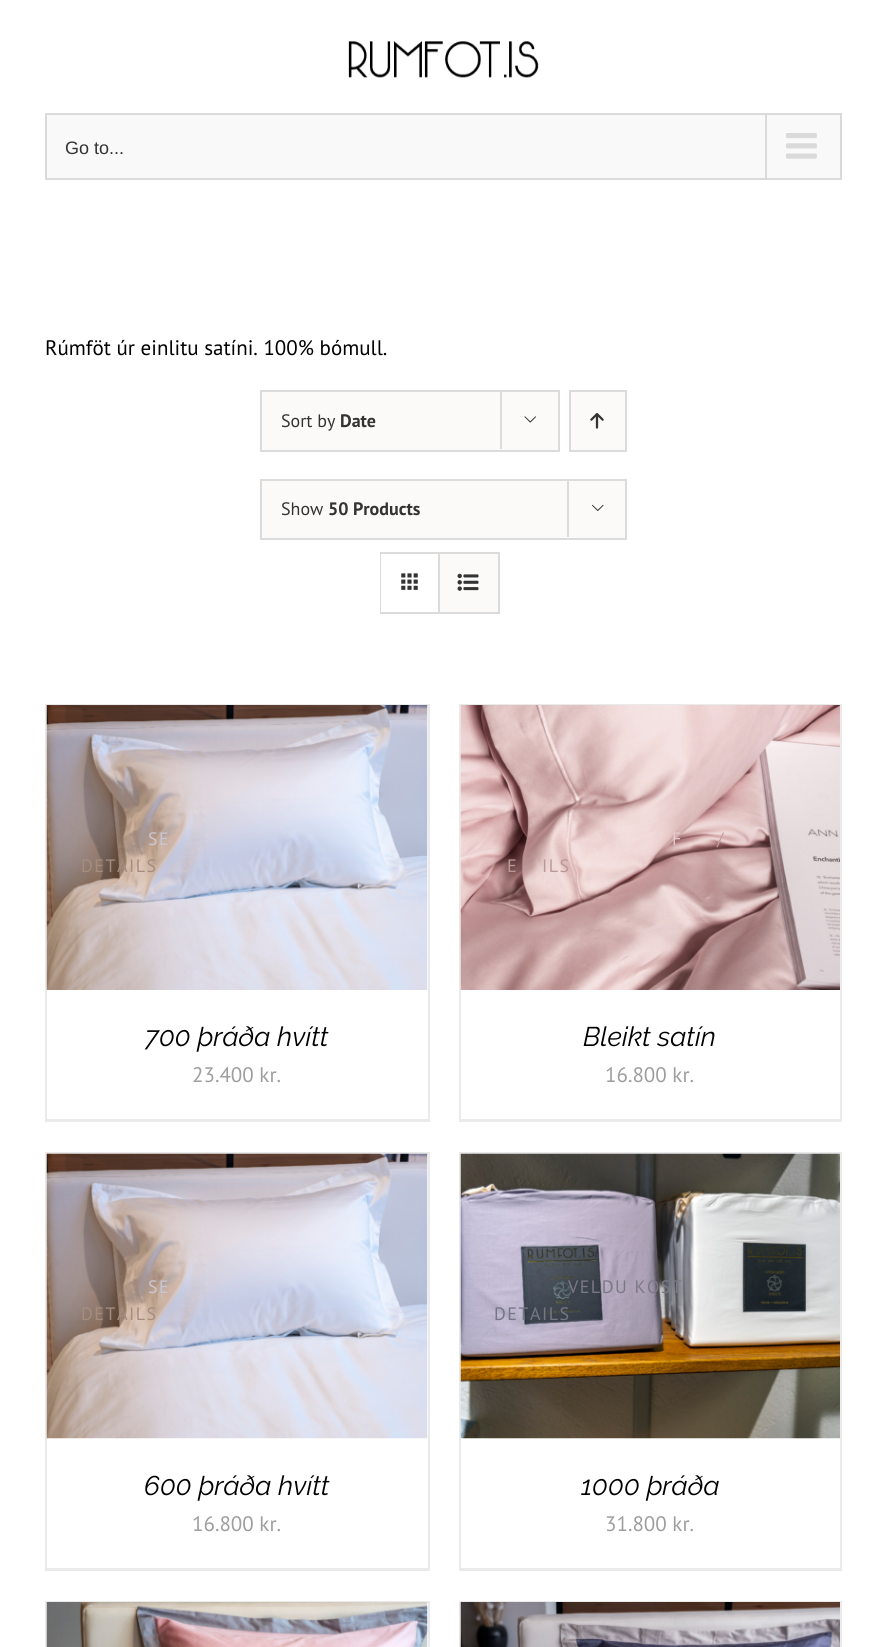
#include <cairo.h>
#include <math.h>
#include <stddef.h>


static void rgb(cairo_t *cr, int r, int g, int b)
{
	cairo_set_source_rgb(cr, r / 255.0, g / 255.0, b / 255.0);
}

static void face(cairo_t *cr, const char *family, double size, int italic, int bold)
{
	cairo_select_font_face(cr, family, italic ? CAIRO_FONT_SLANT_ITALIC : CAIRO_FONT_SLANT_NORMAL,
		bold ? CAIRO_FONT_WEIGHT_BOLD : CAIRO_FONT_WEIGHT_NORMAL);
	cairo_set_font_size(cr, size);
}

static void label(cairo_t *cr, double x, double y, const char *s)
{
	cairo_move_to(cr, x, y);
	cairo_show_text(cr, s);
}

static void tracked(cairo_t *cr, double x, double y, const char *s, double letter, double word)
{
	cairo_move_to(cr, x, y);
	while (*s) {
		char ch[5] = {0};
		int n = 0;
		do ch[n++] = *s++; while ((*s & 0xC0) == 0x80);
		cairo_show_text(cr, ch);
		cairo_rel_move_to(cr, letter + word * (*ch == ' '), 0);
	}
}

static void rect(cairo_t *cr, double x, double y, double w, double h)
{
	cairo_rectangle(cr, x, y, w, h);
	cairo_fill(cr);
}

static void image(cairo_t *cr, const char *path, double x, double y, double w, double h)
{
	cairo_surface_t *image = cairo_image_surface_create_from_png(path);
	cairo_save(cr);
	cairo_set_source_surface(cr, image, x, y);
	cairo_rectangle(cr, x, y, w, h);
	cairo_fill(cr);
	cairo_restore(cr);
	cairo_surface_destroy(image);
}

static void draw(cairo_t *cr) {
	rgb(cr, 255, 255, 255);
	cairo_paint(cr);
	image(cr, "image0.png", 348, 41, 191, 37);
	rgb(cr, 249, 249, 249);
	cairo_rectangle(cr, 46, 114, 795, 65);
	cairo_fill_preserve(cr);
	rgb(cr, 218, 218, 218);
	cairo_stroke(cr);
	face(cr, "Liberation Sans", 18, 0, 0);
	rgb(cr, 51, 51, 51);
	label(cr, 65, 154, "Go to...");
	rgb(cr, 218, 218, 218);
	rect(cr, 765, 114, 2, 65);
	image(cr, "image1.png", 786, 133, 31, 26);
	face(cr, "PT Sans", 21, 0, 0);
	rgb(cr, 0, 0, 0);
	label(cr, 45, 355, "Rúmföt úr einlitu satíni. 100% bómull.");
	rgb(cr, 251, 250, 249);
	cairo_rectangle(cr, 261, 391, 298, 60);
	cairo_fill_preserve(cr);
	rgb(cr, 219, 219, 219);
	cairo_stroke(cr);
	face(cr, "PT Sans", 18, 0, 0);
	rgb(cr, 51, 51, 51);
	label(cr, 281, 427, "Sort by");
	face(cr, "PT Sans", 18, 0, 1);
	label(cr, 340, 427, "Date");
	rgb(cr, 219, 219, 219);
	rect(cr, 500, 390, 2, 59);
	image(cr, "image2.png", 524, 416, 12, 7);
	rgb(cr, 251, 250, 249);
	cairo_rectangle(cr, 570, 391, 56, 60);
	cairo_fill_preserve(cr);
	rgb(cr, 219, 219, 219);
	cairo_stroke(cr);
	image(cr, "image3.png", 590, 413, 14, 16);
	rgb(cr, 251, 250, 249);
	cairo_rectangle(cr, 261, 480, 365, 59);
	cairo_fill_preserve(cr);
	rgb(cr, 219, 219, 219);
	cairo_stroke(cr);
	face(cr, "PT Sans", 18, 0, 0);
	rgb(cr, 51, 51, 51);
	label(cr, 281, 515, "Show");
	face(cr, "PT Sans", 18, 0, 1);
	label(cr, 328, 515, "50 Products");
	rgb(cr, 219, 219, 219);
	rect(cr, 567, 479, 2, 58);
	image(cr, "image4.png", 592, 504, 12, 7);
	cairo_rectangle(cr, 381, 553, 118, 60);
	cairo_stroke(cr);
	rgb(cr, 255, 255, 255);
	rect(cr, 381, 554, 1, 58);
	rgb(cr, 219, 219, 219);
	rect(cr, 438, 554, 2, 58);
	image(cr, "image5.png", 401, 573, 17, 17);
	rgb(cr, 251, 250, 249);
	rect(cr, 440, 554, 58, 58);
	image(cr, "image6.png", 457, 573, 22, 18);
	rgb(cr, 235, 234, 234);
	rect(cr, 45, 704, 384, 2);
	rect(cr, 428, 704, 2, 418);
	rect(cr, 45, 1119, 384, 3);
	rect(cr, 45, 704, 2, 418);
	image(cr, "image7.png", 46, 705, 382, 285);
	face(cr, "PT Sans", 18, 0, 0);
	rgb(cr, 202, 198, 209);
	tracked(cr, 148, 845, "SE", 1.5, 0);
	rgb(cr, 164, 140, 126);
	tracked(cr, 81, 872, "DETAILS", 1.5, 0);
	face(cr, "Raleway", 27, 1, 0);
	rgb(cr, 0, 0, 0);
	label(cr, 145, 1046, "700 þráða hvítt");
	face(cr, "PT Sans", 21, 0, 0);
	rgb(cr, 158, 158, 158);
	label(cr, 192, 1082, "23.400 kr.");
	rgb(cr, 235, 234, 234);
	rect(cr, 459, 704, 383, 1);
	rect(cr, 840, 704, 2, 418);
	rect(cr, 459, 1119, 383, 3);
	rect(cr, 459, 704, 2, 418);
	image(cr, "image8.png", 460, 705, 380, 285);
	face(cr, "PT Sans", 18, 0, 0);
	rgb(cr, 230, 202, 201);
	tracked(cr, 672, 845, "F", 1.5, 0);
	rgb(cr, 196, 157, 158);
	label(cr, 717, 845, "/");
	rgb(cr, 187, 152, 152);
	tracked(cr, 507, 872, "E", 1.5, 0);
	tracked(cr, 542, 872, "ILS", 1.5, 0);
	face(cr, "Raleway", 27, 1, 0);
	rgb(cr, 0, 0, 0);
	label(cr, 583, 1046, "Bleikt satín");
	face(cr, "PT Sans", 21, 0, 0);
	rgb(cr, 158, 158, 158);
	label(cr, 605, 1082, "16.800 kr.");
	rgb(cr, 235, 234, 234);
	rect(cr, 45, 1152, 384, 2);
	rect(cr, 428, 1152, 2, 419);
	rect(cr, 45, 1568, 384, 3);
	rect(cr, 45, 1152, 2, 419);
	image(cr, "image9.png", 46, 1153, 382, 286);
	face(cr, "PT Sans", 18, 0, 0);
	rgb(cr, 202, 198, 209);
	tracked(cr, 148, 1293, "SE", 1.5, 0);
	rgb(cr, 164, 140, 126);
	tracked(cr, 81, 1320, "DETAILS", 1.5, 0);
	face(cr, "Raleway", 27, 1, 0);
	rgb(cr, 0, 0, 0);
	label(cr, 144, 1495, "600 þráða hvítt");
	face(cr, "PT Sans", 21, 0, 0);
	rgb(cr, 158, 158, 158);
	label(cr, 192, 1531, "16.800 kr.");
	rgb(cr, 235, 234, 234);
	rect(cr, 459, 1152, 383, 2);
	rect(cr, 840, 1152, 2, 419);
	rect(cr, 459, 1568, 383, 3);
	rect(cr, 459, 1152, 2, 419);
	image(cr, "image10.png", 460, 1153, 380, 286);
	face(cr, "PT Sans", 18, 0, 0);
	rgb(cr, 124, 121, 134);
	tracked(cr, 568, 1293, "VELDU KOST", 1.5, 0);
	rgb(cr, 117, 118, 133);
	tracked(cr, 494, 1320, "DETAILS", 1.5, 0);
	face(cr, "Raleway", 27, 1, 0);
	rgb(cr, 0, 0, 0);
	label(cr, 581, 1495, "1000 þráða");
	face(cr, "PT Sans", 21, 0, 0);
	rgb(cr, 158, 158, 158);
	label(cr, 605, 1531, "31.800 kr.");
	rgb(cr, 235, 234, 234);
	rect(cr, 45, 1601, 384, 2);
	rect(cr, 428, 1601, 2, 46);
	rect(cr, 45, 1601, 2, 46);
	image(cr, "image11.png", 46, 1602, 382, 45);
	rect(cr, 459, 1601, 383, 1);
	rect(cr, 840, 1601, 2, 46);
	rect(cr, 459, 1601, 2, 46);
	image(cr, "image12.png", 460, 1602, 380, 45);
}

int main(void) {
	cairo_surface_t *surface = cairo_image_surface_create(CAIRO_FORMAT_RGB24, 886, 1647);
	cairo_t *cr = cairo_create(surface);
	cairo_font_options_t *options = cairo_font_options_create();
	cairo_font_options_set_hint_metrics(options, CAIRO_HINT_METRICS_OFF);
	cairo_font_options_set_hint_style(options, CAIRO_HINT_STYLE_NONE);
	cairo_set_font_options(cr, options);
	cairo_set_miter_limit(cr, 4);
	draw(cr);
	cairo_surface_write_to_png(surface, "render.png");
	cairo_font_options_destroy(options);
	cairo_destroy(cr);
	cairo_surface_destroy(surface);
	return 0;
}
